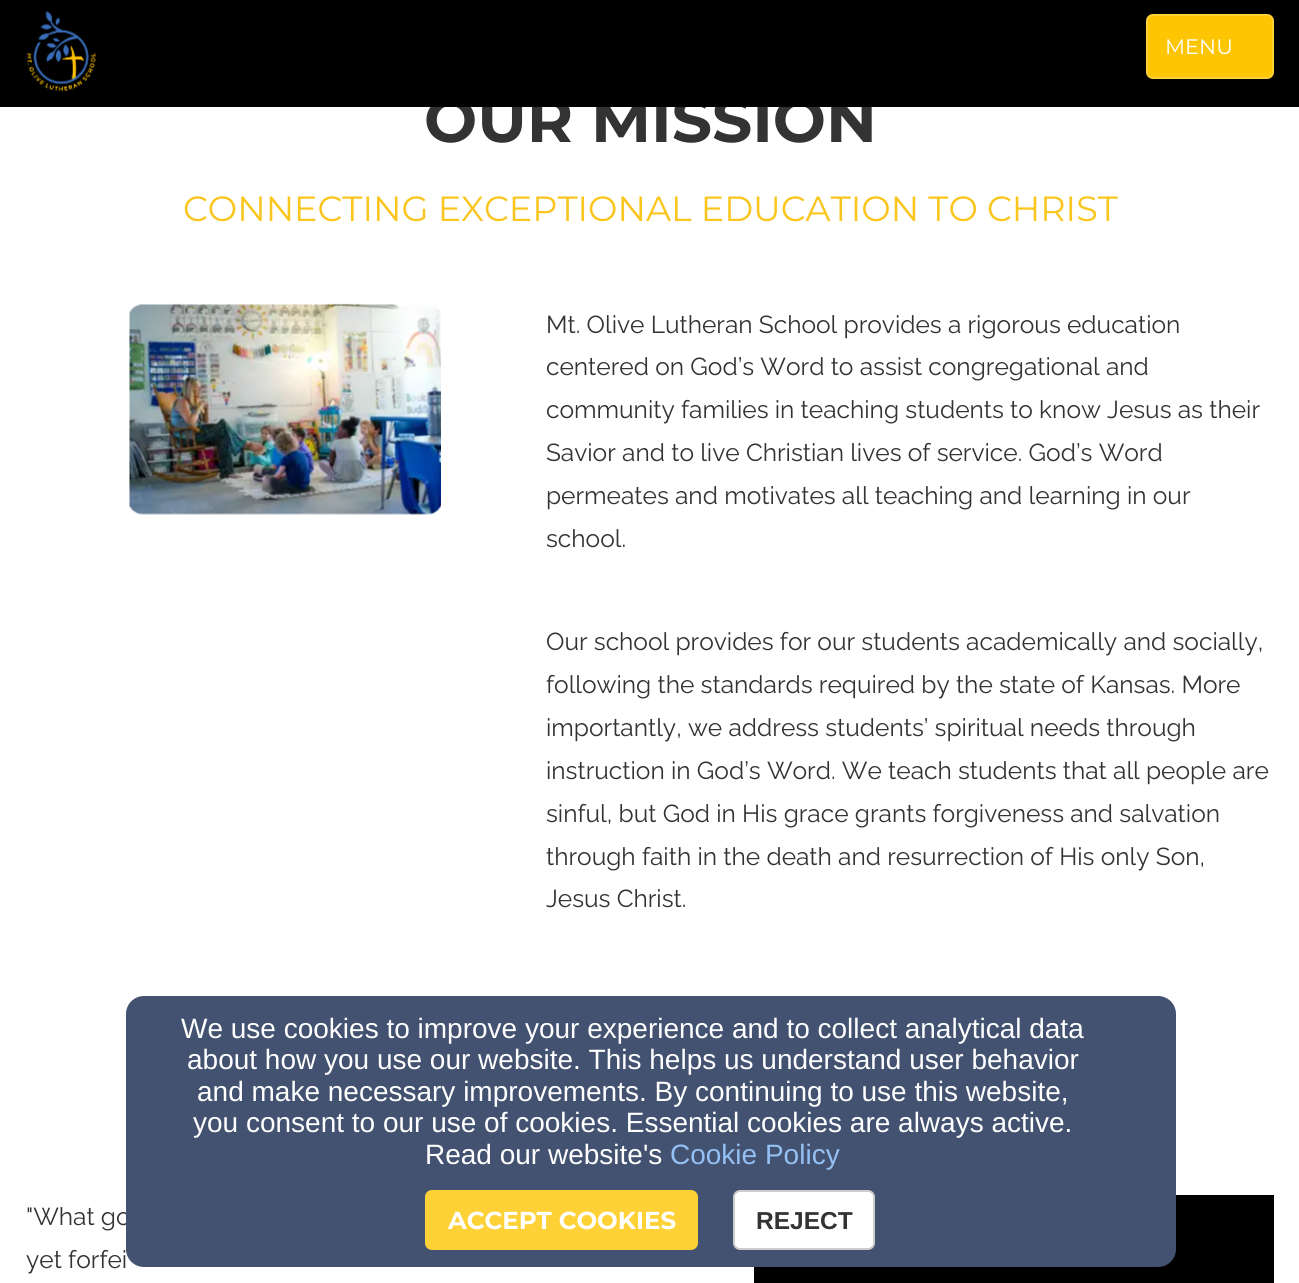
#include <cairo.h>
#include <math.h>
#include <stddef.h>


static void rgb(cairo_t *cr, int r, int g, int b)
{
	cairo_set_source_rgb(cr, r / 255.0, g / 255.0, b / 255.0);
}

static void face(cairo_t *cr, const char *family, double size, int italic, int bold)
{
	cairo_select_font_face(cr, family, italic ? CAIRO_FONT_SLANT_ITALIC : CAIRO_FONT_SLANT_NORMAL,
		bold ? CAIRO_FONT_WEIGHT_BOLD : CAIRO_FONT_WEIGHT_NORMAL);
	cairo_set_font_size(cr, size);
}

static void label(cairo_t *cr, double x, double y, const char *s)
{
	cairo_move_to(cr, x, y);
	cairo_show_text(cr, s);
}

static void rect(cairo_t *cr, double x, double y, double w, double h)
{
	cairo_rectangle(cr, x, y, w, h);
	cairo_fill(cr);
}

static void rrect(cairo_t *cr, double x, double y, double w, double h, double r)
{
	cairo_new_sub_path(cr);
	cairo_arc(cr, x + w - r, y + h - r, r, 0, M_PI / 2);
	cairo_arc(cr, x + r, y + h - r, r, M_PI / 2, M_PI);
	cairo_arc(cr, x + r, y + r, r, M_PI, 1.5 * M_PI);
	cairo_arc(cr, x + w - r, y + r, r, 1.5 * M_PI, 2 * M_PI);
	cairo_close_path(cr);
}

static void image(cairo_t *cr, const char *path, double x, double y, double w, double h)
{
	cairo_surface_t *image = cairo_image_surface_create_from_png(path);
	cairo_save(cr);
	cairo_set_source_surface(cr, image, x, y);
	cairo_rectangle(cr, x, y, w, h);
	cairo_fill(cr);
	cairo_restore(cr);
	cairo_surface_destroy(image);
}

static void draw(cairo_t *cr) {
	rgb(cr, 255, 255, 255);
	cairo_paint(cr);
	face(cr, "Montserrat", 63, 0, 1);
	rgb(cr, 51, 51, 51);
	label(cr, 424, 142, "OUR MISSION");
	rgb(cr, 0, 0, 0);
	rect(cr, 0, 0, 1299, 107);
	image(cr, "image0.png", 26, 11, 70, 81);
	rgb(cr, 254, 197, 3);
	rrect(cr, 1147, 15, 126, 63, 6);
	cairo_fill_preserve(cr);
	rgb(cr, 254, 209, 54);
	cairo_stroke(cr);
	face(cr, "Montserrat", 21, 0, 0);
	rgb(cr, 255, 255, 255);
	label(cr, 1165, 54, "MENU");
	face(cr, "Montserrat", 35, 0, 0);
	rgb(cr, 250, 197, 28);
	label(cr, 183, 221, "CONNECTING EXCEPTIONAL EDUCATION TO CHRIST");
	image(cr, "image1.png", 129, 303, 312, 212);
	face(cr, "Raleway", 24.5, 0, 0);
	rgb(cr, 51, 51, 51);
	label(cr, 546, 333, "Mt. Olive Lutheran School provides a rigorous education");
	label(cr, 546, 375, "centered on God’s Word to assist congregational and");
	label(cr, 546, 418, "community families in teaching students to know Jesus as their");
	label(cr, 546, 461, "Savior and to live Christian lives of service. God’s Word");
	label(cr, 546, 504, "permeates and motivates all teaching and learning in our");
	label(cr, 546, 547, "school.");
	label(cr, 546, 650, "Our school provides for our students academically and socially,");
	label(cr, 546, 693, "following the standards required by the state of Kansas. More");
	label(cr, 546, 736, "importantly, we address students’ spiritual needs through");
	label(cr, 546, 779, "instruction in God’s Word. We teach students that all people are");
	label(cr, 546, 822, "sinful, but God in His grace grants forgiveness and salvation");
	label(cr, 546, 865, "through faith in the death and resurrection of His only Son,");
	label(cr, 546, 907, "Jesus Christ.");
	label(cr, 26, 1225, "\"What go");
	label(cr, 26, 1268, "yet forfei");
	rgb(cr, 0, 0, 0);
	rect(cr, 754, 1195, 520, 88);
	rgb(cr, 67, 82, 112);
	rrect(cr, 126, 996, 1050, 271, 18);
	cairo_fill(cr);
	face(cr, "Liberation Sans", 28, 0, 0);
	rgb(cr, 255, 255, 255);
	label(cr, 181, 1038, "We use cookies to improve your experience and to collect analytical data");
	label(cr, 187, 1069, "about how you use our website. This helps us understand user behavior");
	label(cr, 197, 1101, "and make necessary improvements. By continuing to use this website,");
	label(cr, 193, 1132, "you consent to our use of cookies. Essential cookies are always active.");
	label(cr, 425, 1164, "Read our website's");
	rgb(cr, 148, 192, 243);
	label(cr, 670, 1164, "Cookie Policy");
	rgb(cr, 254, 209, 54);
	rrect(cr, 426, 1191, 271, 58, 6);
	cairo_fill_preserve(cr);
	cairo_stroke(cr);
	face(cr, "Montserrat", 24.5, 0, 1);
	rgb(cr, 255, 255, 255);
	label(cr, 448, 1229, "ACCEPT COOKIES");
	rrect(cr, 734, 1191, 140, 58, 6);
	cairo_fill_preserve(cr);
	rgb(cr, 204, 204, 204);
	cairo_stroke(cr);
	face(cr, "Liberation Sans", 24.5, 0, 1);
	rgb(cr, 51, 51, 51);
	label(cr, 756, 1229, "REJECT");
}

int main(void) {
	cairo_surface_t *surface = cairo_image_surface_create(CAIRO_FORMAT_RGB24, 1299, 1283);
	cairo_t *cr = cairo_create(surface);
	cairo_font_options_t *options = cairo_font_options_create();
	cairo_font_options_set_hint_metrics(options, CAIRO_HINT_METRICS_OFF);
	cairo_font_options_set_hint_style(options, CAIRO_HINT_STYLE_NONE);
	cairo_set_font_options(cr, options);
	cairo_set_miter_limit(cr, 4);
	draw(cr);
	cairo_surface_write_to_png(surface, "render.png");
	cairo_font_options_destroy(options);
	cairo_destroy(cr);
	cairo_surface_destroy(surface);
	return 0;
}
